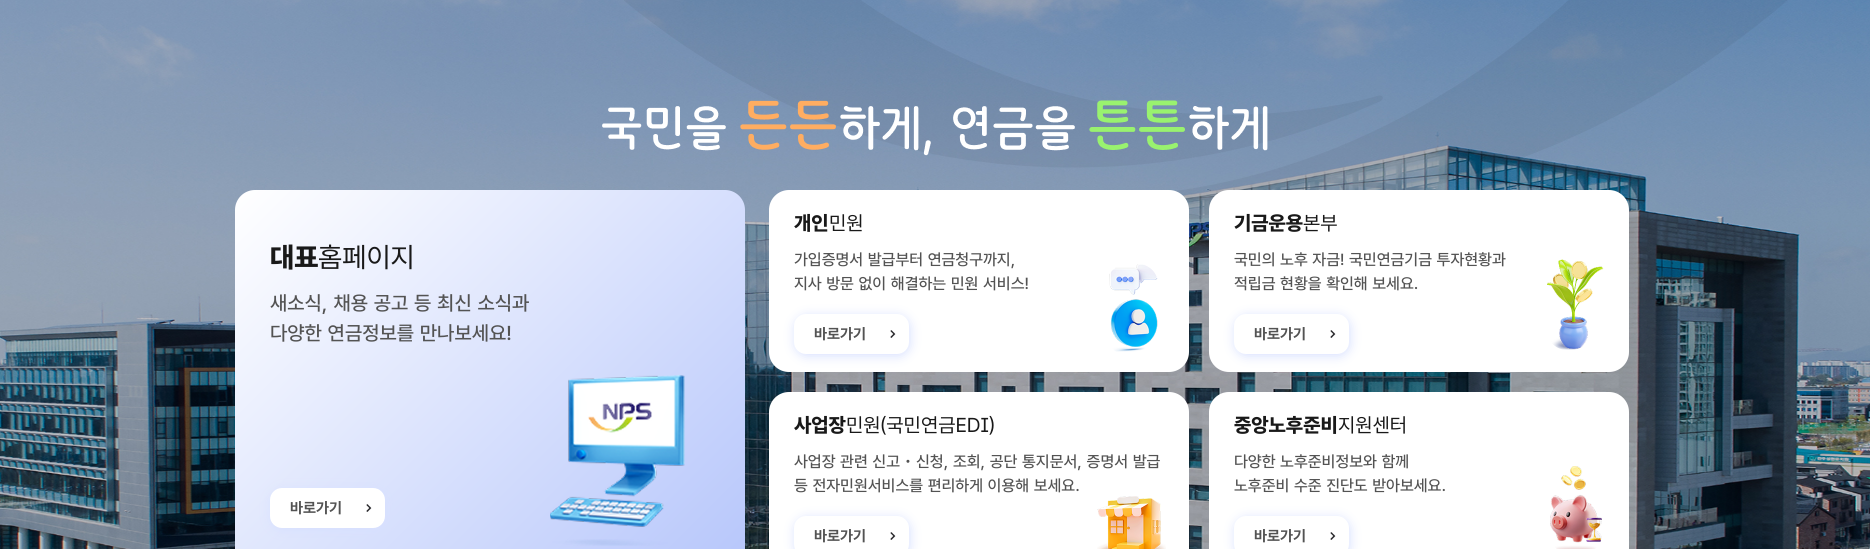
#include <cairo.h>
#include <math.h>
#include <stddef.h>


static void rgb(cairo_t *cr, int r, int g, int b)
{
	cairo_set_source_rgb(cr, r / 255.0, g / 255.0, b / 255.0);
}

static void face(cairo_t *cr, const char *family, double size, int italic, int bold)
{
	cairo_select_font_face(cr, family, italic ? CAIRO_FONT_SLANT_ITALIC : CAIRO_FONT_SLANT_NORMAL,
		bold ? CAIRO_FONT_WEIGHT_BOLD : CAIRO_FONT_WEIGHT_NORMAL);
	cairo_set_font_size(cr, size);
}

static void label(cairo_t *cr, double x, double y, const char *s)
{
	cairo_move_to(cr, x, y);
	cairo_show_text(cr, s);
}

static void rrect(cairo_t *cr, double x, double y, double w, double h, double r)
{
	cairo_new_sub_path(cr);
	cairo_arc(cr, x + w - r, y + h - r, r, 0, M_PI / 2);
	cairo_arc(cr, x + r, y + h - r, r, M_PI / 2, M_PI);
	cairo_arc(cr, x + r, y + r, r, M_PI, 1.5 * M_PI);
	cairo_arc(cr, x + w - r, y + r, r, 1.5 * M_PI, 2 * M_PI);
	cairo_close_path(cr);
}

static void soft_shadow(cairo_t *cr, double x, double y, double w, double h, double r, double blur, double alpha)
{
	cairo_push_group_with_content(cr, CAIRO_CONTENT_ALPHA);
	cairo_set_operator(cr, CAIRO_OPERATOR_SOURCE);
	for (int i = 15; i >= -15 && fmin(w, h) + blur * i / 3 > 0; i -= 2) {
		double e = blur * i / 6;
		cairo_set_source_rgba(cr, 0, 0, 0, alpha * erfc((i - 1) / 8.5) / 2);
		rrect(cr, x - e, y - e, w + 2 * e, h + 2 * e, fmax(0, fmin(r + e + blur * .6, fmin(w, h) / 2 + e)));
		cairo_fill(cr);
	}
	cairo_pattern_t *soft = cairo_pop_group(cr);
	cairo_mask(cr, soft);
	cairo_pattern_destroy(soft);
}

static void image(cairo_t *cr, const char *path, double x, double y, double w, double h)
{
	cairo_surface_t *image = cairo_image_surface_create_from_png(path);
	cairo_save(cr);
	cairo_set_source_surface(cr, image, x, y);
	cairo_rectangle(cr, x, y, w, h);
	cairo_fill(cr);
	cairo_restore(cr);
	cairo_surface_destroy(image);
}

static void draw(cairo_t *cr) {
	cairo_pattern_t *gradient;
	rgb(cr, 255, 255, 255);
	cairo_paint(cr);
	image(cr, "image0.png", 0, 0, 1870, 549);
	image(cr, "image1.png", 624, 0, 1164, 215);
	image(cr, "image2.png", 602, 100, 329, 56);
	image(cr, "image3.png", 953, 100, 315, 51);
	gradient = cairo_pattern_create_linear(267, 159, 714, 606);
	cairo_pattern_add_color_stop_rgba(gradient, 0, 1, 1, 1, 1);
	cairo_pattern_add_color_stop_rgba(gradient, 1, 0.714, 0.776, 0.984, 1);
	cairo_set_source(cr, gradient);
	cairo_pattern_destroy(gradient);
	rrect(cr, 235, 190, 510, 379, 20);
	cairo_fill(cr);
	face(cr, "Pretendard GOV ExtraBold", 28, 0, 0);
	rgb(cr, 25, 25, 25);
	label(cr, 270, 267, "대표");
	face(cr, "Pretendard GOV", 28, 0, 0);
	label(cr, 318, 267, "홈페이지");
	face(cr, "Pretendard GOV Medium", 20, 0, 0);
	rgb(cr, 83, 83, 83);
	label(cr, 270, 310, "새소식, 채용 공고 등 최신 소식과");
	label(cr, 270, 340, "다양한 연금정보를 만나보세요!");
	rgb(cr, 215, 224, 255);
	soft_shadow(cr, 271, 490, 115, 40, 12, 5.5, 1);
	rgb(cr, 255, 255, 255);
	rrect(cr, 270, 488, 115, 40, 12);
	cairo_fill(cr);
	face(cr, "Pretendard GOV", 15, 0, 1);
	rgb(cr, 83, 83, 83);
	label(cr, 290, 513, "바로가기");
	image(cr, "image4.png", 366, 504, 6, 8);
	image(cr, "image5.png", 550, 375, 135, 171);
	rgb(cr, 255, 255, 255);
	rrect(cr, 769, 190, 420, 182, 20);
	cairo_fill(cr);
	face(cr, "Pretendard GOV ExtraBold", 20, 0, 0);
	rgb(cr, 25, 25, 25);
	label(cr, 794, 230, "개인");
	face(cr, "Pretendard GOV", 20, 0, 0);
	label(cr, 829, 230, "민원");
	face(cr, "Pretendard GOV Medium", 16, 0, 0);
	rgb(cr, 83, 83, 83);
	label(cr, 794, 265, "가입증명서 발급부터 연금청구까지,");
	label(cr, 794, 289, "지사 방문 없이 해결하는 민원 서비스!");
	rgb(cr, 215, 224, 255);
	soft_shadow(cr, 795, 316, 115, 40, 12, 5.5, 1);
	rgb(cr, 255, 255, 255);
	rrect(cr, 794, 314, 115, 40, 12);
	cairo_fill(cr);
	face(cr, "Pretendard GOV", 15, 0, 1);
	rgb(cr, 83, 83, 83);
	label(cr, 814, 339, "바로가기");
	image(cr, "image4.png", 890, 330, 6, 8);
	image(cr, "image6.png", 1109, 264, 49, 88);
	rgb(cr, 255, 255, 255);
	rrect(cr, 1209, 190, 420, 182, 20);
	cairo_fill(cr);
	face(cr, "Pretendard GOV ExtraBold", 20, 0, 0);
	rgb(cr, 25, 25, 25);
	label(cr, 1234, 230, "기금운용");
	face(cr, "Pretendard GOV", 20, 0, 0);
	label(cr, 1303, 230, "본부");
	face(cr, "Pretendard GOV Medium", 16, 0, 0);
	rgb(cr, 83, 83, 83);
	label(cr, 1234, 265, "국민의 노후 자금! 국민연금기금 투자현황과");
	label(cr, 1234, 289, "적립금 현황을 확인해 보세요.");
	rgb(cr, 215, 224, 255);
	soft_shadow(cr, 1235, 316, 115, 40, 12, 5.5, 1);
	rgb(cr, 255, 255, 255);
	rrect(cr, 1234, 314, 115, 40, 12);
	cairo_fill(cr);
	face(cr, "Pretendard GOV", 15, 0, 1);
	rgb(cr, 83, 83, 83);
	label(cr, 1254, 339, "바로가기");
	image(cr, "image4.png", 1330, 330, 6, 8);
	image(cr, "image7.png", 1547, 259, 57, 91);
	rgb(cr, 255, 255, 255);
	rrect(cr, 769, 392, 420, 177, 20);
	cairo_fill(cr);
	face(cr, "Pretendard GOV ExtraBold", 20, 0, 0);
	rgb(cr, 25, 25, 25);
	label(cr, 794, 432, "사업장");
	face(cr, "Pretendard GOV", 20, 0, 0);
	label(cr, 846, 432, "민원(국민연금EDI)");
	face(cr, "Pretendard GOV Medium", 16, 0, 0);
	rgb(cr, 83, 83, 83);
	label(cr, 794, 467, "사업장 관련 신고");
	face(cr, "Dotum", 16, 0, 0);
	label(cr, 900, 467, "ㆍ");
	face(cr, "Pretendard GOV Medium", 16, 0, 0);
	label(cr, 916, 467, "신청, 조회, 공단 통지문서, 증명서 발급");
	label(cr, 794, 491, "등 전자민원서비스를 편리하게 이용해 보세요.");
	rgb(cr, 215, 224, 255);
	soft_shadow(cr, 795, 518, 115, 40, 12, 5.5, 1);
	rgb(cr, 255, 255, 255);
	rrect(cr, 794, 516, 115, 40, 12);
	cairo_fill(cr);
	face(cr, "Pretendard GOV", 15, 0, 1);
	rgb(cr, 83, 83, 83);
	label(cr, 814, 541, "바로가기");
	image(cr, "image4.png", 890, 532, 6, 8);
	image(cr, "image8.png", 1097, 496, 69, 53);
	rgb(cr, 255, 255, 255);
	rrect(cr, 1209, 392, 420, 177, 20);
	cairo_fill(cr);
	face(cr, "Pretendard GOV ExtraBold", 20, 0, 0);
	rgb(cr, 25, 25, 25);
	label(cr, 1234, 432, "중앙노후준비");
	face(cr, "Pretendard GOV", 20, 0, 0);
	label(cr, 1338, 432, "지원센터");
	face(cr, "Pretendard GOV Medium", 16, 0, 0);
	rgb(cr, 83, 83, 83);
	label(cr, 1234, 467, "다양한 노후준비정보와 함께");
	label(cr, 1234, 491, "노후준비 수준 진단도 받아보세요.");
	rgb(cr, 215, 224, 255);
	soft_shadow(cr, 1235, 518, 115, 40, 12, 5.5, 1);
	rgb(cr, 255, 255, 255);
	rrect(cr, 1234, 516, 115, 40, 12);
	cairo_fill(cr);
	face(cr, "Pretendard GOV", 15, 0, 1);
	rgb(cr, 83, 83, 83);
	label(cr, 1254, 541, "바로가기");
	image(cr, "image4.png", 1330, 532, 6, 8);
	image(cr, "image9.png", 1550, 466, 52, 83);
}

int main(void) {
	cairo_surface_t *surface = cairo_image_surface_create(CAIRO_FORMAT_RGB24, 1870, 549);
	cairo_t *cr = cairo_create(surface);
	cairo_font_options_t *options = cairo_font_options_create();
	cairo_font_options_set_hint_metrics(options, CAIRO_HINT_METRICS_OFF);
	cairo_font_options_set_hint_style(options, CAIRO_HINT_STYLE_NONE);
	cairo_set_font_options(cr, options);
	cairo_set_miter_limit(cr, 4);
	draw(cr);
	cairo_surface_write_to_png(surface, "render.png");
	cairo_font_options_destroy(options);
	cairo_destroy(cr);
	cairo_surface_destroy(surface);
	return 0;
}
